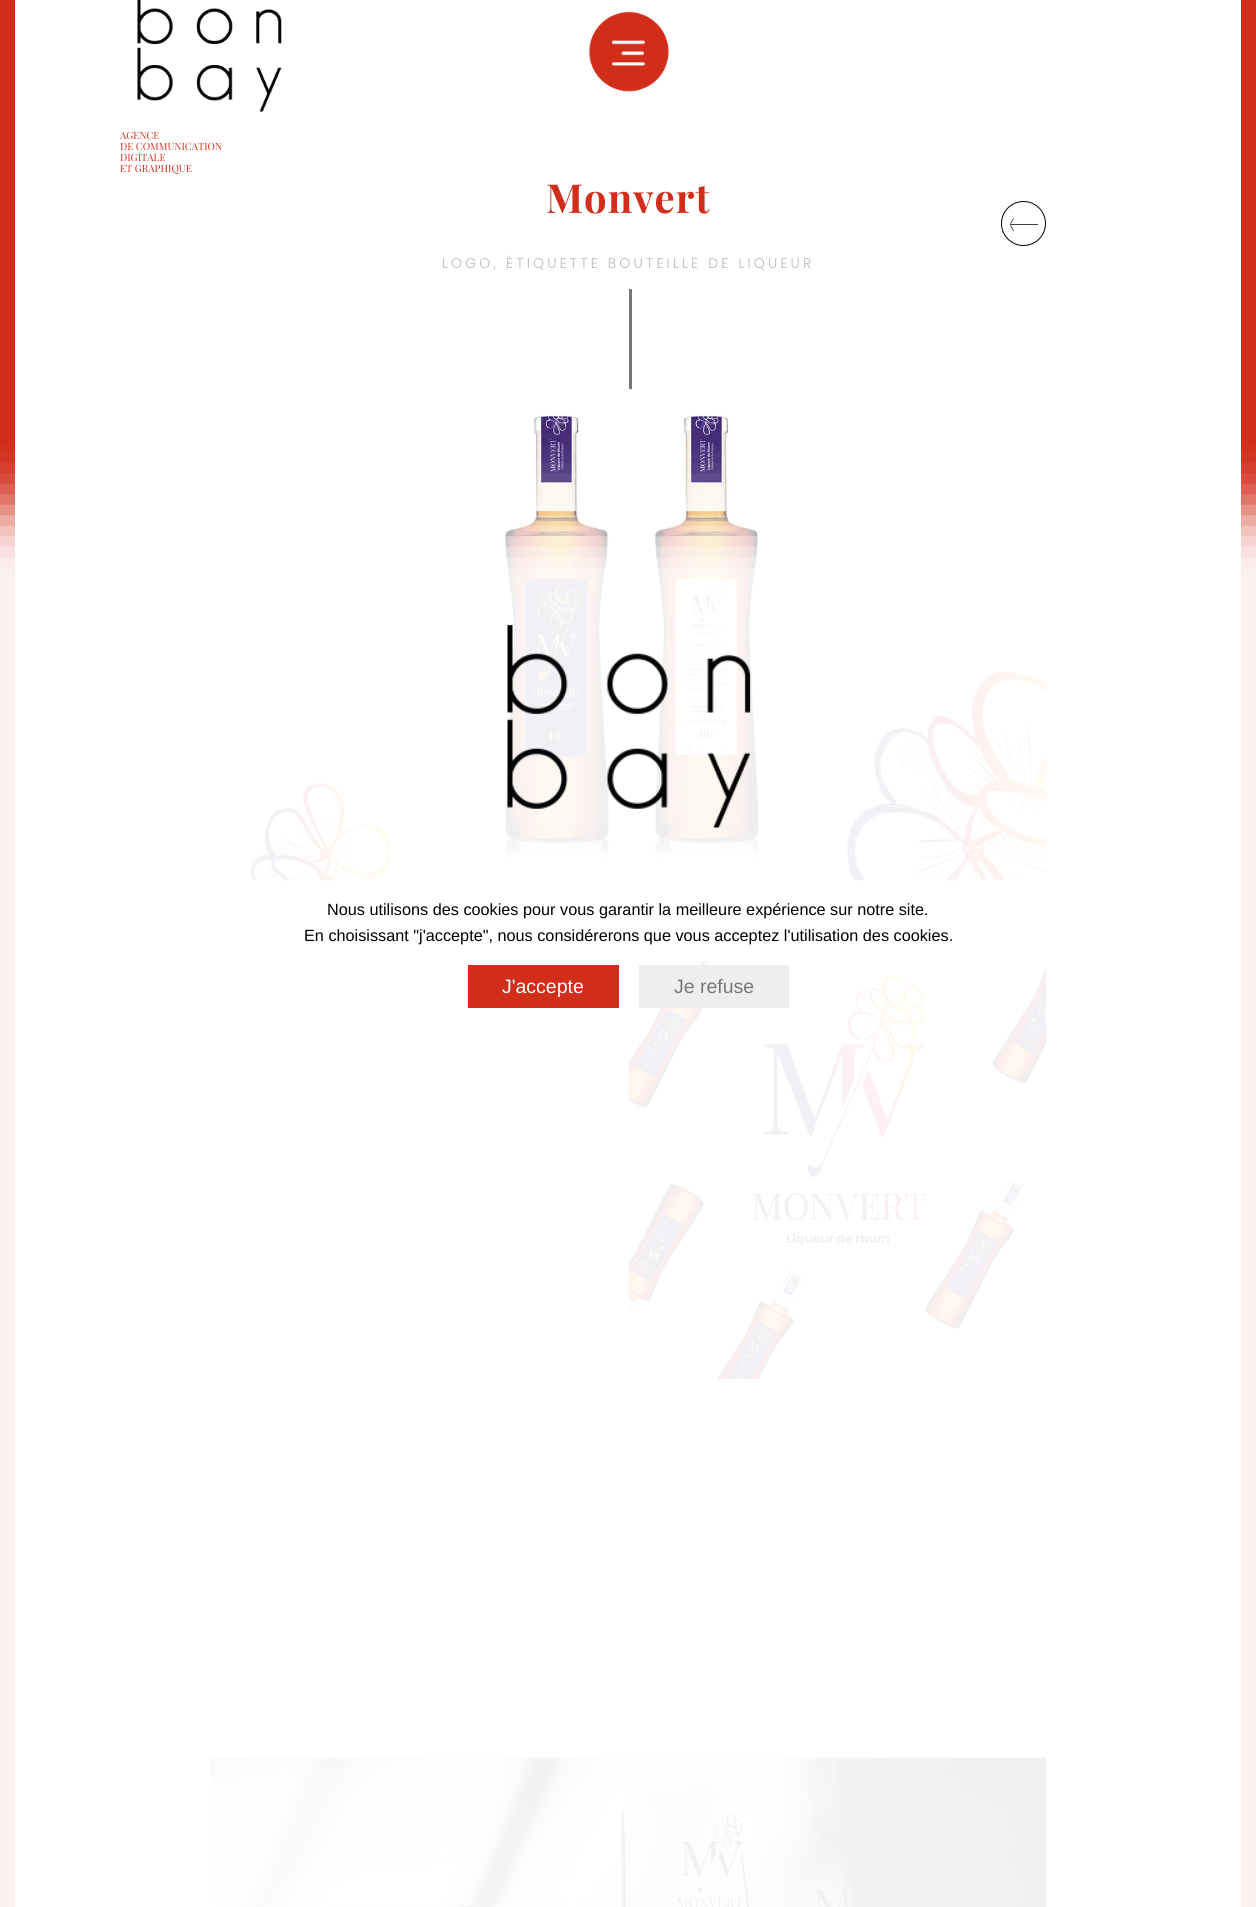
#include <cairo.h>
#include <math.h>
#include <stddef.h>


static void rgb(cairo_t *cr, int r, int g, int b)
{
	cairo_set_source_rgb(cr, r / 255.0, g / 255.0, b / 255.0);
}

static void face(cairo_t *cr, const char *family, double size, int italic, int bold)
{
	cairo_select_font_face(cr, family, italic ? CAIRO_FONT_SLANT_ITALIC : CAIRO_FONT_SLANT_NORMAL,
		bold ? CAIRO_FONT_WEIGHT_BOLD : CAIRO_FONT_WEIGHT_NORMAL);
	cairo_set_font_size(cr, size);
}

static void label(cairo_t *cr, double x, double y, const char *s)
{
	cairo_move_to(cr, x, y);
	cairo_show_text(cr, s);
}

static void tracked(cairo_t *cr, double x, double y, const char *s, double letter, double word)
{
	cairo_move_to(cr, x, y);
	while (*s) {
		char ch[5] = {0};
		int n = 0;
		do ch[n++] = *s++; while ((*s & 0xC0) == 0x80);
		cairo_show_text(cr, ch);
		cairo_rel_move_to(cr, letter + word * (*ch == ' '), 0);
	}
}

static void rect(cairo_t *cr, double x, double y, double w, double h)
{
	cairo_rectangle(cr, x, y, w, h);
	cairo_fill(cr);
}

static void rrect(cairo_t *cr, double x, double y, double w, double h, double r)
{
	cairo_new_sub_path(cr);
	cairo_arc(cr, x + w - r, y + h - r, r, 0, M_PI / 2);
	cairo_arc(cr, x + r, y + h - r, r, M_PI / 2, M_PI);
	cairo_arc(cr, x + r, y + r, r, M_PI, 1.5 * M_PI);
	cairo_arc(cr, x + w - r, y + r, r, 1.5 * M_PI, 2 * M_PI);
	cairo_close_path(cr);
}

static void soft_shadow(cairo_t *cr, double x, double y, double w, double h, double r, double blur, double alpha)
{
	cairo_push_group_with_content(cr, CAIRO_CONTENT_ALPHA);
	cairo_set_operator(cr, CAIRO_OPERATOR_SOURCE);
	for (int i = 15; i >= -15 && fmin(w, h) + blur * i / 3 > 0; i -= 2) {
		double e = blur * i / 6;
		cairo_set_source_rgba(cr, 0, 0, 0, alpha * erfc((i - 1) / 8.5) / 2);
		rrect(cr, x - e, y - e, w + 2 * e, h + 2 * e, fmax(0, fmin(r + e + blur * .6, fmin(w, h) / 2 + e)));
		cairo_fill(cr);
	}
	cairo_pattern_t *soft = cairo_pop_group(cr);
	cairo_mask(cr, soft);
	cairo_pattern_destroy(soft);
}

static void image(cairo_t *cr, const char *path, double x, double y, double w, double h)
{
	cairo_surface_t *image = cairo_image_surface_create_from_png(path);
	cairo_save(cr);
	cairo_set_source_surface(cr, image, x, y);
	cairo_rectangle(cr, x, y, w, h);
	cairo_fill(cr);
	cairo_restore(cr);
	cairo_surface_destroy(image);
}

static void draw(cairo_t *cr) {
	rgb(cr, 255, 255, 255);
	cairo_paint(cr);
	rgb(cr, 210, 45, 27);
	rect(cr, 0, 0, 15, 1907);
	image(cr, "image0.png", 588, 11, 81, 81);
	image(cr, "image1.png", 137, 0, 145, 112);
	face(cr, "Playfair Display", 10, 0, 0);
	label(cr, 120, 139, "AGENCE");
	label(cr, 120, 150, "DE COMMUNICATION");
	label(cr, 120, 161, "DIGITALE");
	label(cr, 120, 172, "ET GRAPHIQUE");
	rect(cr, 1241, 0, 15, 1907);
	face(cr, "Playfair Display", 40, 0, 1);
	tracked(cr, 546, 213, "Monvert", 1, 0);
	image(cr, "image2.png", 1010, 218, 28, 14);
	cairo_arc(cr, 1023.5, 223.5, 22, 0, 2 * M_PI);
	rgb(cr, 0, 0, 0);
	cairo_set_line_width(cr, 1);
	cairo_stroke(cr);
	rgb(cr, 120, 120, 120);
	rect(cr, 629, 289, 3, 100);
	face(cr, "Poppins Light", 14, 0, 0);
	rgb(cr, 185, 185, 185);
	tracked(cr, 442, 268, "LOGO, ÉTIQUETTE BOUTEILLE DE LIQUEUR", 3.15, 0);
	image(cr, "image3.png", 247, 412, 800, 469);
	image(cr, "image4.png", 628, 960, 419, 419);
	image(cr, "image5.png", 210, 1757, 837, 150);
	cairo_save(cr);
	cairo_rectangle(cr, 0, 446, 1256, 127);
	cairo_clip(cr);
	rgb(cr, 255, 255, 255);
	soft_shadow(cr, -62, 510, 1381, 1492, 0, 31.5, 0.95);
	cairo_restore(cr);
	cairo_set_source_rgba(cr, 1, 1, 1, 0.93);
	rect(cr, 0, 573, 1256, 1334);
	image(cr, "image6.png", 507, 624, 244, 204);
	face(cr, "Liberation Sans", 16.25, 0, 0);
	rgb(cr, 0, 0, 0);
	label(cr, 327, 915, "Nous utilisons des cookies pour vous garantir la meilleure expérience sur notre site.");
	label(cr, 304, 941, "En choisissant \"j'accepte\", nous considérerons que vous acceptez l'utilisation des cookies.");
	rgb(cr, 210, 45, 27);
	rect(cr, 468, 965, 151, 43);
	face(cr, "Liberation Sans", 19.5, 0, 0);
	rgb(cr, 255, 255, 255);
	label(cr, 502, 993, "J'accepte");
	rgb(cr, 238, 238, 238);
	rect(cr, 639, 965, 150, 43);
	rgb(cr, 119, 119, 119);
	label(cr, 674, 993, "Je refuse");
}

int main(void) {
	cairo_surface_t *surface = cairo_image_surface_create(CAIRO_FORMAT_RGB24, 1256, 1907);
	cairo_t *cr = cairo_create(surface);
	cairo_font_options_t *options = cairo_font_options_create();
	cairo_font_options_set_hint_metrics(options, CAIRO_HINT_METRICS_OFF);
	cairo_font_options_set_hint_style(options, CAIRO_HINT_STYLE_NONE);
	cairo_set_font_options(cr, options);
	cairo_set_miter_limit(cr, 4);
	draw(cr);
	cairo_surface_write_to_png(surface, "render.png");
	cairo_font_options_destroy(options);
	cairo_destroy(cr);
	cairo_surface_destroy(surface);
	return 0;
}
